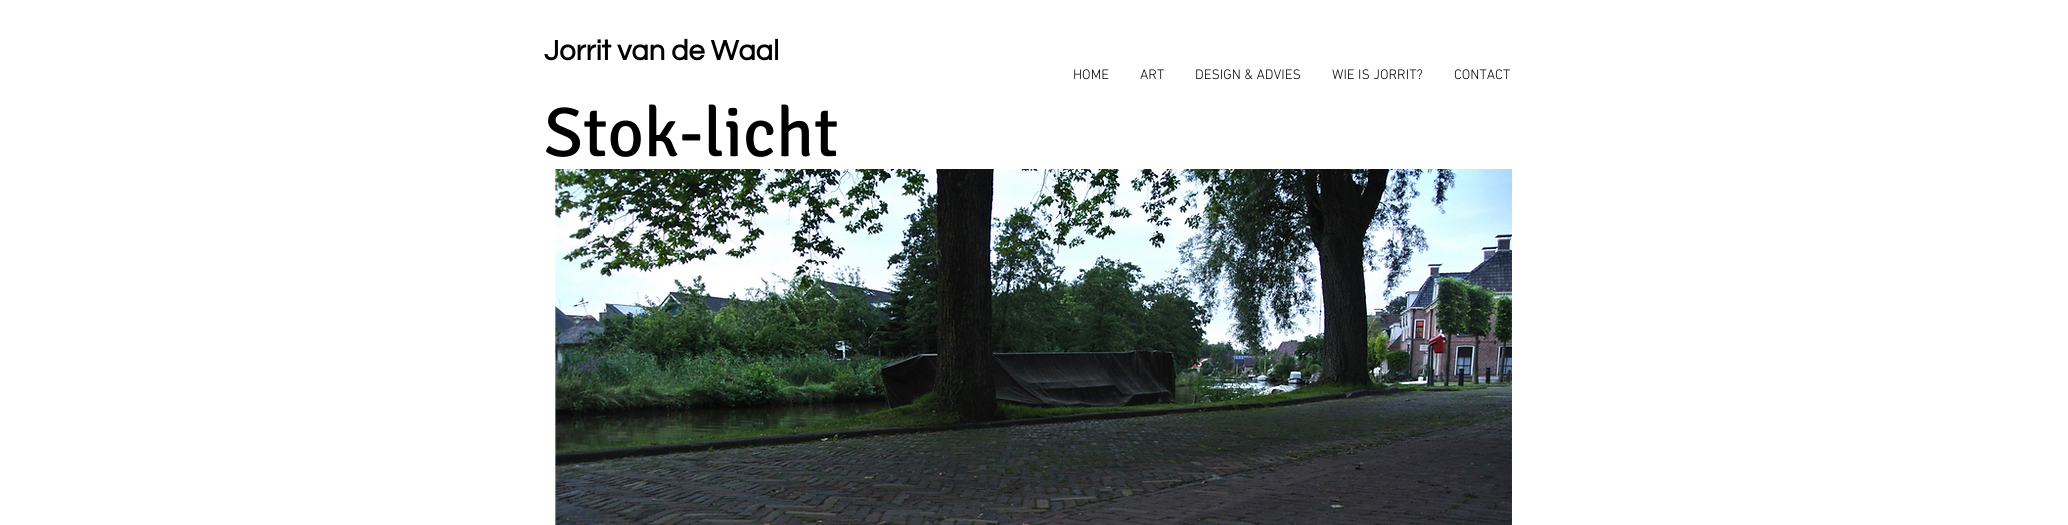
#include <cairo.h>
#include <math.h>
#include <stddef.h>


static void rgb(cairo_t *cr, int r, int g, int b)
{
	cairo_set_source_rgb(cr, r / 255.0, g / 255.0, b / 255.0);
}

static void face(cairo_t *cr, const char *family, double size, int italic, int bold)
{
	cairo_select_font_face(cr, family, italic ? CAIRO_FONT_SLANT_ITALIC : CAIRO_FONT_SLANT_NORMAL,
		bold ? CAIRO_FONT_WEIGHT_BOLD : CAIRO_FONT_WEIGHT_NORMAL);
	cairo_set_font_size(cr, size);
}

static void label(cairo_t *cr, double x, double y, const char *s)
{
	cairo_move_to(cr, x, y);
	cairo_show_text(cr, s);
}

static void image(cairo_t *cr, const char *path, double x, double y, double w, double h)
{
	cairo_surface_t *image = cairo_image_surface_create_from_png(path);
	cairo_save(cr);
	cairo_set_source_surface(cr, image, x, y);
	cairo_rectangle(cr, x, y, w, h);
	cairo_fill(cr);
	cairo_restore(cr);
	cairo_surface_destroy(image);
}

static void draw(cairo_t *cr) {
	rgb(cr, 255, 255, 255);
	cairo_paint(cr);
	face(cr, "Questrial", 29, 0, 1);
	rgb(cr, 0, 0, 0);
	label(cr, 544, 60, "Jorrit van de Waal");
	face(cr, "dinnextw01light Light", 14, 0, 0);
	label(cr, 1073, 79, "HOME");
	label(cr, 1140, 79, "ART");
	label(cr, 1195, 79, "DESIGN & ADVIES");
	label(cr, 1332, 79, "WIE IS JORRIT?");
	label(cr, 1454, 79, "CONTACT");
	face(cr, "Signika", 70, 0, 0);
	label(cr, 544, 156, "Stok-licht");
	image(cr, "image0.png", 555, 169, 957, 356);
}

int main(void) {
	cairo_surface_t *surface = cairo_image_surface_create(CAIRO_FORMAT_RGB24, 2068, 525);
	cairo_t *cr = cairo_create(surface);
	cairo_font_options_t *options = cairo_font_options_create();
	cairo_font_options_set_hint_metrics(options, CAIRO_HINT_METRICS_OFF);
	cairo_font_options_set_hint_style(options, CAIRO_HINT_STYLE_NONE);
	cairo_set_font_options(cr, options);
	cairo_set_miter_limit(cr, 4);
	draw(cr);
	cairo_surface_write_to_png(surface, "render.png");
	cairo_font_options_destroy(options);
	cairo_destroy(cr);
	cairo_surface_destroy(surface);
	return 0;
}
